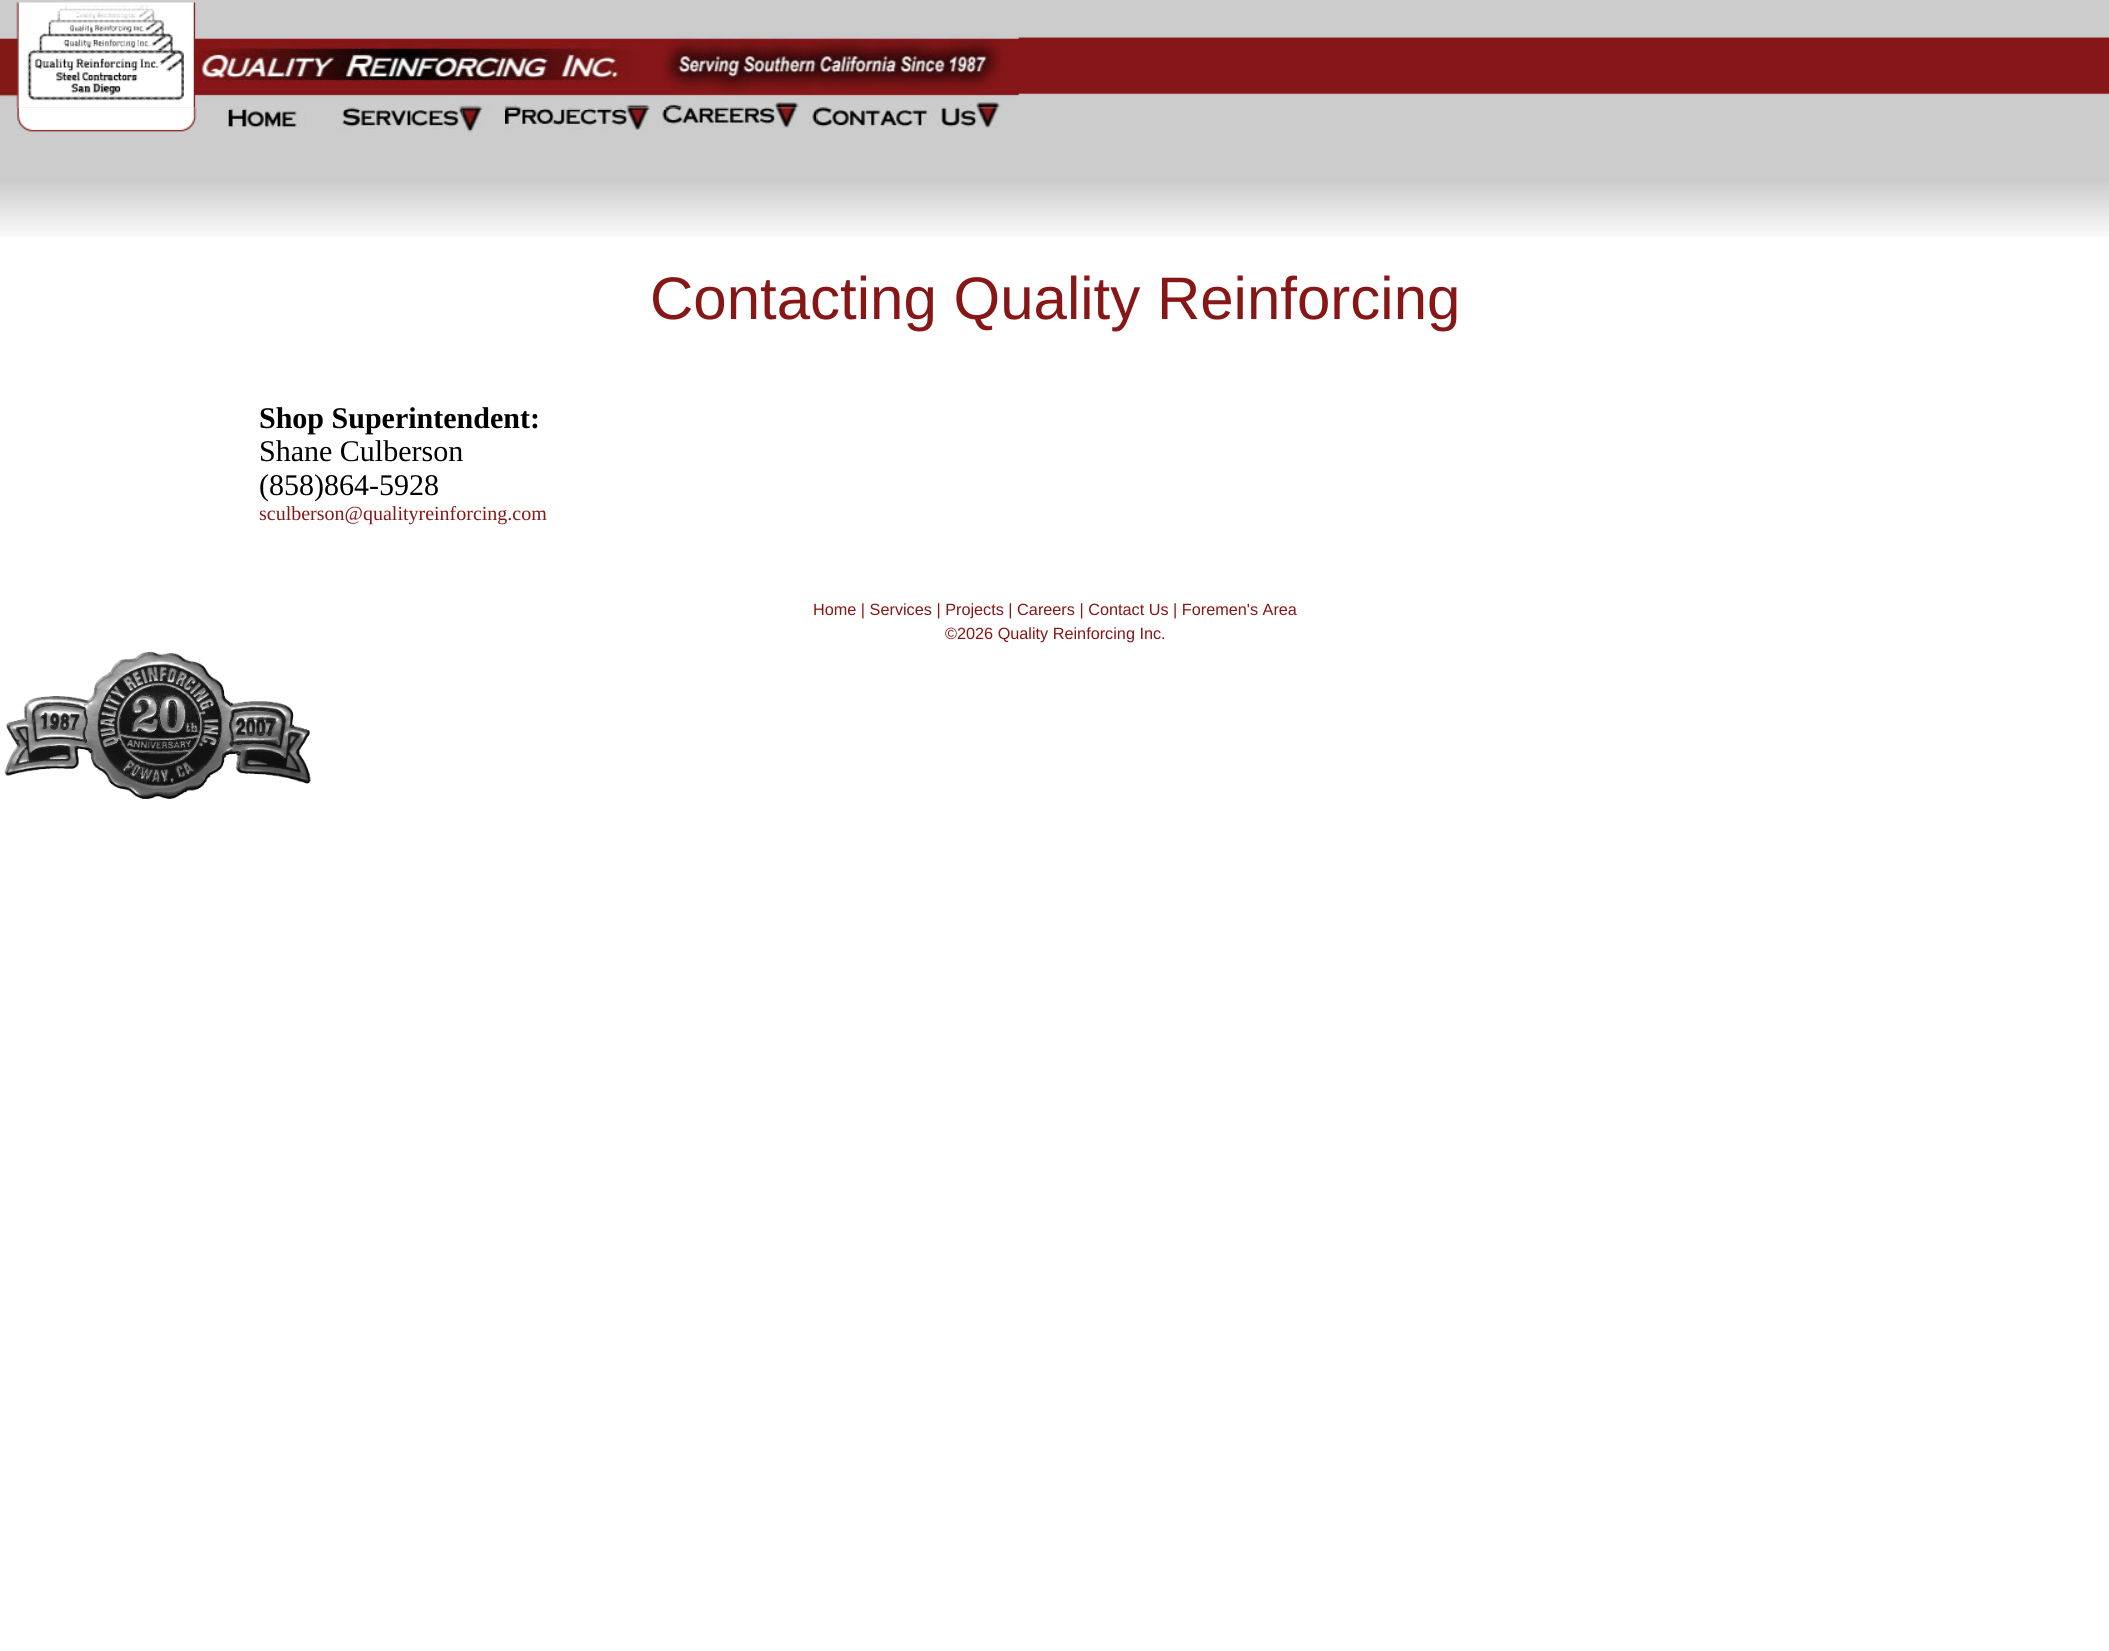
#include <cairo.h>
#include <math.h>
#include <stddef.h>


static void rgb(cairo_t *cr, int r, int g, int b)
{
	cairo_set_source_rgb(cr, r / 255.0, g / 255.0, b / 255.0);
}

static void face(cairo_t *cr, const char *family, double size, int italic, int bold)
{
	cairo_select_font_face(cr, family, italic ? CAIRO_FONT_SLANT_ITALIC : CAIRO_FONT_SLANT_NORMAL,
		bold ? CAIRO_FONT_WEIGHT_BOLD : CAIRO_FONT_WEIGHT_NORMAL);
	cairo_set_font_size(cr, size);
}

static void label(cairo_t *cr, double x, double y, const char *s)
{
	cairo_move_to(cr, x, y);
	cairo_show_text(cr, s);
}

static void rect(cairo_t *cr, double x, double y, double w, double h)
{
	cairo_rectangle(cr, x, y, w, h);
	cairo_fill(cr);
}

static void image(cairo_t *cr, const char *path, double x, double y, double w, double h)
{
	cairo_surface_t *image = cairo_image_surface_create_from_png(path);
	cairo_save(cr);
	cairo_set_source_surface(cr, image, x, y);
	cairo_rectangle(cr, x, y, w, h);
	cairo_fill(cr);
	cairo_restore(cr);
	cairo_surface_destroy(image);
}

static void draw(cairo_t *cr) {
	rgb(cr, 255, 255, 255);
	cairo_paint(cr);
	rgb(cr, 204, 204, 204);
	rect(cr, 0, 0, 2109, 164);
	image(cr, "image0.png", 1018, 34, 1091, 61);
	image(cr, "image1.png", 0, 2, 1019, 106);
	image(cr, "image2.png", 16, 107, 651, 3);
	image(cr, "image3.png", 666, 107, 112, 19);
	image(cr, "image4.png", 777, 107, 222, 2);
	image(cr, "image5.png", 17, 110, 180, 22);
	image(cr, "image6.png", 227, 110, 68, 18);
	image(cr, "image7.png", 295, 110, 10, 19);
	image(cr, "image8.png", 339, 110, 124, 19);
	image(cr, "image9.png", 462, 110, 21, 23);
	image(cr, "image10.png", 505, 110, 123, 19);
	image(cr, "image11.png", 627, 110, 40, 21);
	image(cr, "image12.png", 777, 108, 40, 21);
	image(cr, "image13.png", 816, 108, 164, 20);
	image(cr, "image14.png", 980, 108, 18, 21);
	rgb(cr, 199, 199, 199);
	rect(cr, 229, 127, 1, 1);
	image(cr, "image15.png", 0, 164, 2109, 73);
	face(cr, "Liberation Sans", 60, 0, 0);
	rgb(cr, 135, 22, 22);
	label(cr, 650, 319, "Contacting Quality Reinforcing");
	face(cr, "Liberation Serif", 30, 0, 1);
	rgb(cr, 0, 0, 0);
	label(cr, 259, 428, "Shop Superintendent:");
	face(cr, "Liberation Serif", 30, 0, 0);
	label(cr, 259, 461, "Shane Culberson");
	label(cr, 259, 495, "(858)864-5928");
	face(cr, "Liberation Serif", 20, 0, 0);
	rgb(cr, 135, 22, 22);
	label(cr, 259, 520, "sculberson@qualityreinforcing.com");
	face(cr, "Liberation Sans", 16.25, 0, 0);
	label(cr, 813, 615, "Home | Services | Projects | Careers | Contact Us | Foremen's Area");
	label(cr, 945, 639, "©2026 Quality Reinforcing Inc.");
	image(cr, "image16.png", 4, 652, 307, 147);
}

int main(void) {
	cairo_surface_t *surface = cairo_image_surface_create(CAIRO_FORMAT_RGB24, 2109, 1651);
	cairo_t *cr = cairo_create(surface);
	cairo_font_options_t *options = cairo_font_options_create();
	cairo_font_options_set_hint_metrics(options, CAIRO_HINT_METRICS_OFF);
	cairo_font_options_set_hint_style(options, CAIRO_HINT_STYLE_NONE);
	cairo_set_font_options(cr, options);
	cairo_set_miter_limit(cr, 4);
	draw(cr);
	cairo_surface_write_to_png(surface, "render.png");
	cairo_font_options_destroy(options);
	cairo_destroy(cr);
	cairo_surface_destroy(surface);
	return 0;
}
